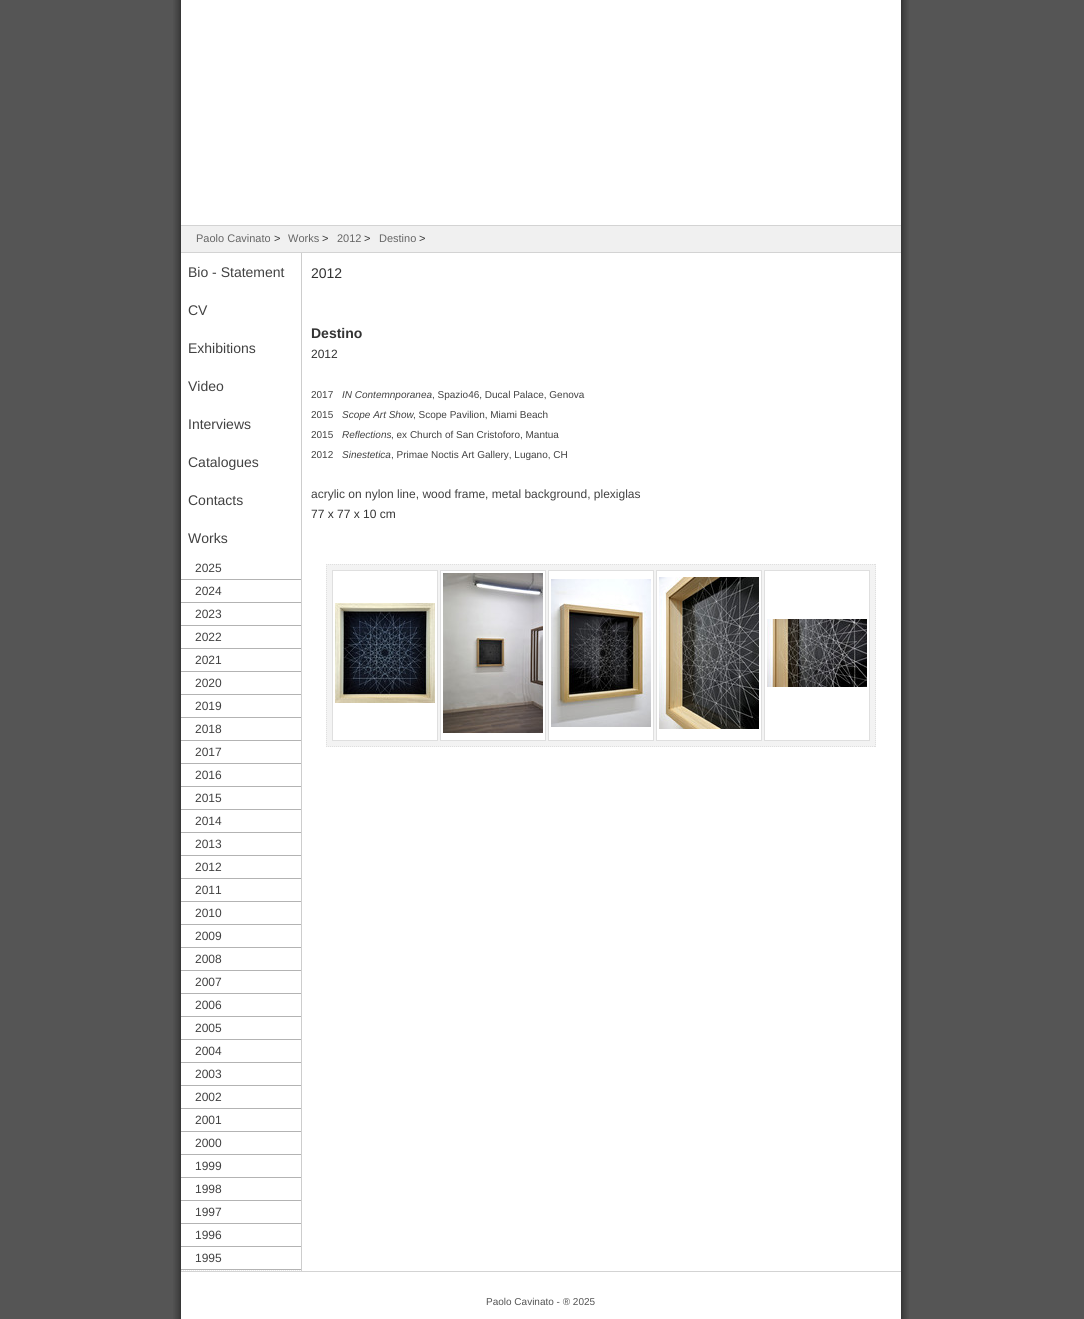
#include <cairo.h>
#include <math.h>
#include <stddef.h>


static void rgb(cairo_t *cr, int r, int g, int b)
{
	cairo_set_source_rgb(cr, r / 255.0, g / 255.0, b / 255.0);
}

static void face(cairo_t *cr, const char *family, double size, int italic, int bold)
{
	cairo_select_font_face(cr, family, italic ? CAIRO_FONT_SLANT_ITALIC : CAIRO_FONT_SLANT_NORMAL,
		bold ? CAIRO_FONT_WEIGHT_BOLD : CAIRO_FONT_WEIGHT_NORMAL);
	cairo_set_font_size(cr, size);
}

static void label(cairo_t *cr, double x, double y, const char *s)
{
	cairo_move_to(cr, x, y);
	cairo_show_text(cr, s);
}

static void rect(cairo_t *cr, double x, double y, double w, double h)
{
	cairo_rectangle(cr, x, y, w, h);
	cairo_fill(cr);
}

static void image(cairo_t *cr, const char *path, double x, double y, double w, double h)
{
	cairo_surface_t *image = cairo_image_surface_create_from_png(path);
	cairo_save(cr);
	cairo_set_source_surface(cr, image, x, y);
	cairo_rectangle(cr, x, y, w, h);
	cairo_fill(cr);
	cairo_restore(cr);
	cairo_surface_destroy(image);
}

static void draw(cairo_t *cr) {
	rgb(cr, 85, 85, 85);
	cairo_paint(cr);
	image(cr, "image0.png", 173, 0, 736, 1319);
	rgb(cr, 255, 255, 255);
	rect(cr, 301, 0, 1, 225);
	rgb(cr, 240, 240, 240);
	rect(cr, 181, 226, 720, 26);
	rgb(cr, 211, 211, 211);
	rect(cr, 181, 225, 720, 1);
	rect(cr, 181, 252, 720, 1);
	face(cr, "Liberation Sans", 11, 0, 0);
	rgb(cr, 102, 102, 102);
	label(cr, 196, 242, "Paolo Cavinato");
	rgb(cr, 51, 51, 51);
	label(cr, 274, 242, ">");
	rgb(cr, 102, 102, 102);
	label(cr, 288, 242, "Works");
	rgb(cr, 51, 51, 51);
	label(cr, 322, 242, ">");
	rgb(cr, 102, 102, 102);
	label(cr, 337, 242, "2012");
	rgb(cr, 51, 51, 51);
	label(cr, 364, 242, ">");
	rgb(cr, 102, 102, 102);
	label(cr, 379, 242, "Destino");
	rgb(cr, 51, 51, 51);
	label(cr, 419, 242, ">");
	cairo_new_path(cr);
	cairo_move_to(cr, 181, 1270.5);
	cairo_line_to(cr, 301, 1270.5);
	rgb(cr, 235, 235, 235);
	cairo_set_line_width(cr, 1);
	cairo_set_dash(cr, (double[]){1, 1}, 2, 0);
	cairo_stroke(cr);
	face(cr, "Liberation Sans", 14, 0, 0);
	rgb(cr, 65, 65, 65);
	label(cr, 188, 277, "Bio - Statement");
	label(cr, 188, 315, "CV");
	label(cr, 188, 353, "Exhibitions");
	label(cr, 188, 391, "Video");
	label(cr, 188, 429, "Interviews");
	label(cr, 188, 467, "Catalogues");
	label(cr, 188, 505, "Contacts");
	label(cr, 188, 543, "Works");
	rgb(cr, 179, 179, 179);
	rect(cr, 181, 579, 120, 1);
	face(cr, "Liberation Sans", 12, 0, 0);
	rgb(cr, 65, 65, 65);
	label(cr, 195, 572, "2025");
	rgb(cr, 179, 179, 179);
	rect(cr, 181, 602, 120, 1);
	rgb(cr, 65, 65, 65);
	label(cr, 195, 595, "2024");
	rgb(cr, 179, 179, 179);
	rect(cr, 181, 625, 120, 1);
	rgb(cr, 65, 65, 65);
	label(cr, 195, 618, "2023");
	rgb(cr, 179, 179, 179);
	rect(cr, 181, 648, 120, 1);
	rgb(cr, 65, 65, 65);
	label(cr, 195, 641, "2022");
	rgb(cr, 179, 179, 179);
	rect(cr, 181, 671, 120, 1);
	rgb(cr, 65, 65, 65);
	label(cr, 195, 664, "2021");
	rgb(cr, 179, 179, 179);
	rect(cr, 181, 694, 120, 1);
	rgb(cr, 65, 65, 65);
	label(cr, 195, 687, "2020");
	rgb(cr, 179, 179, 179);
	rect(cr, 181, 717, 120, 1);
	rgb(cr, 65, 65, 65);
	label(cr, 195, 710, "2019");
	rgb(cr, 179, 179, 179);
	rect(cr, 181, 740, 120, 1);
	rgb(cr, 65, 65, 65);
	label(cr, 195, 733, "2018");
	rgb(cr, 179, 179, 179);
	rect(cr, 181, 763, 120, 1);
	rgb(cr, 65, 65, 65);
	label(cr, 195, 756, "2017");
	rgb(cr, 179, 179, 179);
	rect(cr, 181, 786, 120, 1);
	rgb(cr, 65, 65, 65);
	label(cr, 195, 779, "2016");
	rgb(cr, 179, 179, 179);
	rect(cr, 181, 809, 120, 1);
	rgb(cr, 65, 65, 65);
	label(cr, 195, 802, "2015");
	rgb(cr, 179, 179, 179);
	rect(cr, 181, 832, 120, 1);
	rgb(cr, 65, 65, 65);
	label(cr, 195, 825, "2014");
	rgb(cr, 179, 179, 179);
	rect(cr, 181, 855, 120, 1);
	rgb(cr, 65, 65, 65);
	label(cr, 195, 848, "2013");
	rgb(cr, 179, 179, 179);
	rect(cr, 181, 878, 120, 1);
	rgb(cr, 65, 65, 65);
	label(cr, 195, 871, "2012");
	rgb(cr, 179, 179, 179);
	rect(cr, 181, 901, 120, 1);
	rgb(cr, 65, 65, 65);
	label(cr, 195, 894, "2011");
	rgb(cr, 179, 179, 179);
	rect(cr, 181, 924, 120, 1);
	rgb(cr, 65, 65, 65);
	label(cr, 195, 917, "2010");
	rgb(cr, 179, 179, 179);
	rect(cr, 181, 947, 120, 1);
	rgb(cr, 65, 65, 65);
	label(cr, 195, 940, "2009");
	rgb(cr, 179, 179, 179);
	rect(cr, 181, 970, 120, 1);
	rgb(cr, 65, 65, 65);
	label(cr, 195, 963, "2008");
	rgb(cr, 179, 179, 179);
	rect(cr, 181, 993, 120, 1);
	rgb(cr, 65, 65, 65);
	label(cr, 195, 986, "2007");
	rgb(cr, 179, 179, 179);
	rect(cr, 181, 1016, 120, 1);
	rgb(cr, 65, 65, 65);
	label(cr, 195, 1009, "2006");
	rgb(cr, 179, 179, 179);
	rect(cr, 181, 1039, 120, 1);
	rgb(cr, 65, 65, 65);
	label(cr, 195, 1032, "2005");
	rgb(cr, 179, 179, 179);
	rect(cr, 181, 1062, 120, 1);
	rgb(cr, 65, 65, 65);
	label(cr, 195, 1055, "2004");
	rgb(cr, 179, 179, 179);
	rect(cr, 181, 1085, 120, 1);
	rgb(cr, 65, 65, 65);
	label(cr, 195, 1078, "2003");
	rgb(cr, 179, 179, 179);
	rect(cr, 181, 1108, 120, 1);
	rgb(cr, 65, 65, 65);
	label(cr, 195, 1101, "2002");
	rgb(cr, 179, 179, 179);
	rect(cr, 181, 1131, 120, 1);
	rgb(cr, 65, 65, 65);
	label(cr, 195, 1124, "2001");
	rgb(cr, 179, 179, 179);
	rect(cr, 181, 1154, 120, 1);
	rgb(cr, 65, 65, 65);
	label(cr, 195, 1147, "2000");
	rgb(cr, 179, 179, 179);
	rect(cr, 181, 1177, 120, 1);
	rgb(cr, 65, 65, 65);
	label(cr, 195, 1170, "1999");
	rgb(cr, 179, 179, 179);
	rect(cr, 181, 1200, 120, 1);
	rgb(cr, 65, 65, 65);
	label(cr, 195, 1193, "1998");
	rgb(cr, 179, 179, 179);
	rect(cr, 181, 1223, 120, 1);
	rgb(cr, 65, 65, 65);
	label(cr, 195, 1216, "1997");
	rgb(cr, 179, 179, 179);
	rect(cr, 181, 1246, 120, 1);
	rgb(cr, 65, 65, 65);
	label(cr, 195, 1239, "1996");
	rgb(cr, 179, 179, 179);
	rect(cr, 181, 1269, 120, 1);
	rgb(cr, 65, 65, 65);
	label(cr, 195, 1262, "1995");
	face(cr, "Liberation Sans", 14, 0, 0);
	rgb(cr, 51, 51, 51);
	label(cr, 311, 278, "2012");
	face(cr, "Liberation Sans", 14, 0, 1);
	label(cr, 311, 338, "Destino");
	face(cr, "Liberation Sans", 12, 0, 0);
	label(cr, 311, 358, "2012");
	face(cr, "Liberation Sans", 10, 0, 0);
	rgb(cr, 65, 65, 65);
	label(cr, 311, 398, "2017");
	face(cr, "Liberation Sans", 10, 1, 0);
	label(cr, 342, 398, "IN Contemnporanea");
	face(cr, "Liberation Sans", 10, 0, 0);
	label(cr, 432, 398, ", Spazio46, Ducal Palace, Genova");
	label(cr, 311, 418, "2015");
	face(cr, "Liberation Sans", 10, 1, 0);
	label(cr, 342, 418, "Scope Art Show");
	face(cr, "Liberation Sans", 10, 0, 0);
	label(cr, 413, 418, ", Scope Pavilion, Miami Beach");
	label(cr, 311, 438, "2015");
	face(cr, "Liberation Sans", 10, 1, 0);
	label(cr, 342, 438, "Reflections");
	face(cr, "Liberation Sans", 10, 0, 0);
	label(cr, 391, 438, ", ex Church of San Cristoforo, Mantua");
	label(cr, 311, 458, "2012");
	face(cr, "Liberation Sans", 10, 1, 0);
	label(cr, 342, 458, "Sinestetica");
	face(cr, "Liberation Sans", 10, 0, 0);
	label(cr, 391, 458, ", Primae Noctis Art Gallery, Lugano, CH");
	face(cr, "Liberation Sans", 12, 0, 0);
	label(cr, 311, 498, "acrylic on nylon line, wood frame, metal background, plexiglas");
	rgb(cr, 51, 51, 51);
	label(cr, 311, 518, "77 x 77 x 10 cm");
	rgb(cr, 243, 243, 243);
	rect(cr, 326, 564, 550, 183);
	cairo_new_path(cr);
	cairo_move_to(cr, 326, 564.5);
	cairo_line_to(cr, 876, 564.5);
	rgb(cr, 223, 223, 223);
	cairo_stroke(cr);
	cairo_new_path(cr);
	cairo_move_to(cr, 875.5, 564);
	cairo_line_to(cr, 875.5, 747);
	cairo_stroke(cr);
	cairo_new_path(cr);
	cairo_move_to(cr, 326, 746.5);
	cairo_line_to(cr, 876, 746.5);
	cairo_stroke(cr);
	cairo_new_path(cr);
	cairo_move_to(cr, 326.5, 564);
	cairo_line_to(cr, 326.5, 747);
	cairo_stroke(cr);
	rgb(cr, 255, 255, 255);
	cairo_rectangle(cr, 332.5, 570.5, 105, 170);
	cairo_fill_preserve(cr);
	rgb(cr, 223, 223, 223);
	cairo_set_dash(cr, NULL, 0, 0);
	cairo_stroke(cr);
	image(cr, "image1.png", 335, 603, 100, 100);
	rgb(cr, 255, 255, 255);
	cairo_rectangle(cr, 440.5, 570.5, 105, 170);
	cairo_fill_preserve(cr);
	rgb(cr, 223, 223, 223);
	cairo_stroke(cr);
	image(cr, "image2.png", 443, 573, 100, 160);
	rgb(cr, 255, 255, 255);
	cairo_rectangle(cr, 548.5, 570.5, 105, 170);
	cairo_fill_preserve(cr);
	rgb(cr, 223, 223, 223);
	cairo_stroke(cr);
	image(cr, "image3.png", 551, 579, 100, 148);
	rgb(cr, 255, 255, 255);
	cairo_rectangle(cr, 656.5, 570.5, 105, 170);
	cairo_fill_preserve(cr);
	rgb(cr, 223, 223, 223);
	cairo_stroke(cr);
	image(cr, "image4.png", 659, 577, 100, 152);
	rgb(cr, 255, 255, 255);
	cairo_rectangle(cr, 764.5, 570.5, 105, 170);
	cairo_fill_preserve(cr);
	rgb(cr, 223, 223, 223);
	cairo_stroke(cr);
	image(cr, "image5.png", 767, 619, 100, 68);
	rgb(cr, 255, 255, 255);
	rect(cr, 301, 1272, 1, 47);
	rgb(cr, 211, 211, 211);
	rect(cr, 181, 1271, 720, 1);
	face(cr, "Liberation Sans", 10, 0, 0);
	rgb(cr, 83, 83, 83);
	label(cr, 486, 1305, "Paolo Cavinato - ® 2025");
}

int main(void) {
	cairo_surface_t *surface = cairo_image_surface_create(CAIRO_FORMAT_RGB24, 1084, 1319);
	cairo_t *cr = cairo_create(surface);
	cairo_font_options_t *options = cairo_font_options_create();
	cairo_font_options_set_hint_metrics(options, CAIRO_HINT_METRICS_OFF);
	cairo_font_options_set_hint_style(options, CAIRO_HINT_STYLE_NONE);
	cairo_set_font_options(cr, options);
	cairo_set_miter_limit(cr, 4);
	draw(cr);
	cairo_surface_write_to_png(surface, "render.png");
	cairo_font_options_destroy(options);
	cairo_destroy(cr);
	cairo_surface_destroy(surface);
	return 0;
}
